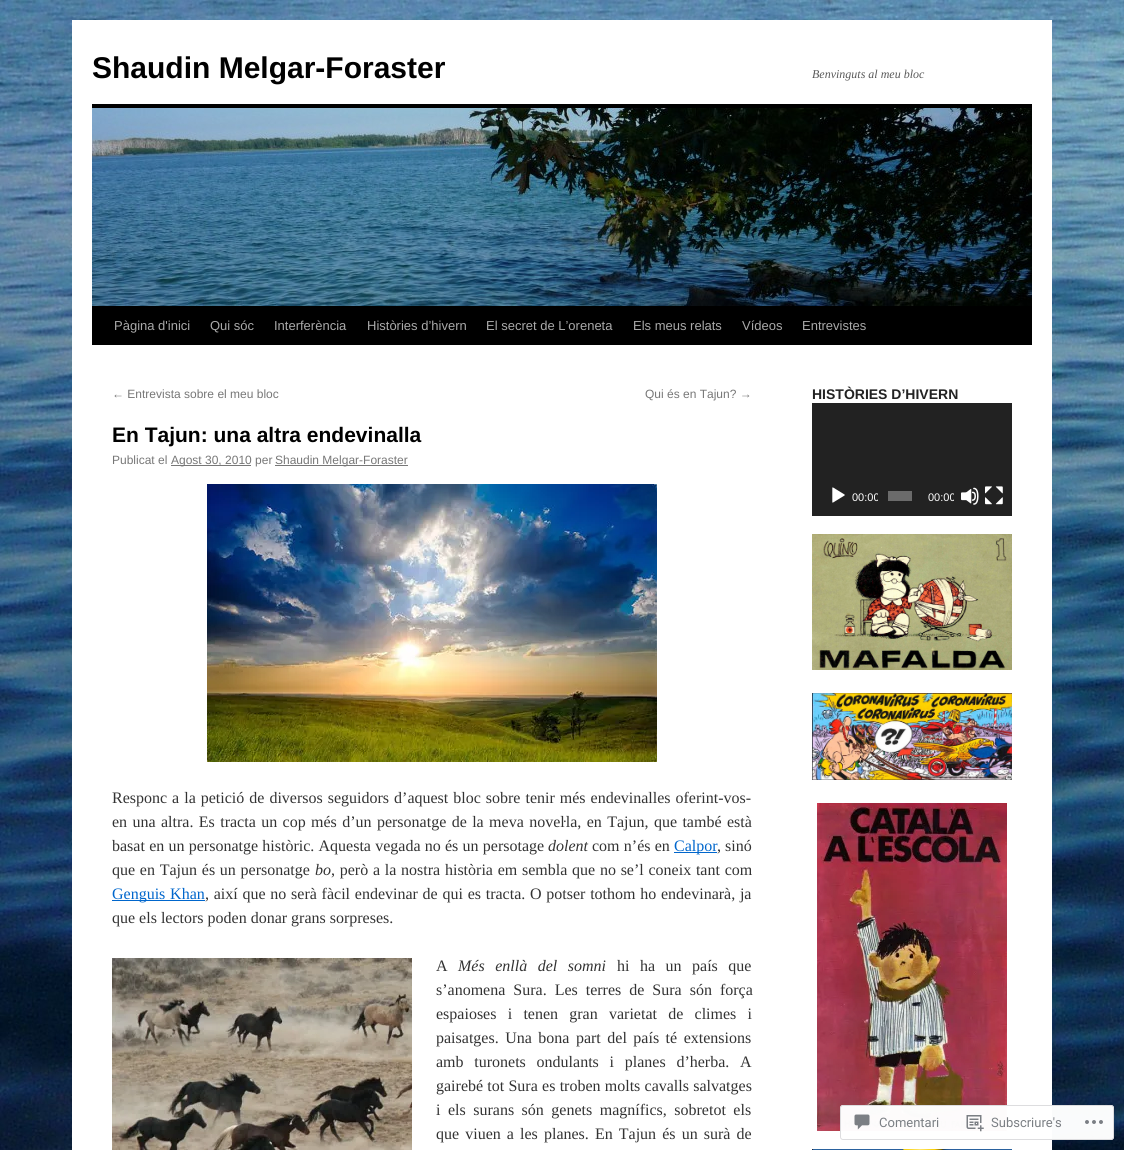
#include <cairo.h>
#include <math.h>
#include <stddef.h>


static void rgb(cairo_t *cr, int r, int g, int b)
{
	cairo_set_source_rgb(cr, r / 255.0, g / 255.0, b / 255.0);
}

static void face(cairo_t *cr, const char *family, double size, int italic, int bold)
{
	cairo_select_font_face(cr, family, italic ? CAIRO_FONT_SLANT_ITALIC : CAIRO_FONT_SLANT_NORMAL,
		bold ? CAIRO_FONT_WEIGHT_BOLD : CAIRO_FONT_WEIGHT_NORMAL);
	cairo_set_font_size(cr, size);
}

static void label(cairo_t *cr, double x, double y, const char *s)
{
	cairo_move_to(cr, x, y);
	cairo_show_text(cr, s);
}

static void tracked(cairo_t *cr, double x, double y, const char *s, double letter, double word)
{
	cairo_move_to(cr, x, y);
	while (*s) {
		char ch[5] = {0};
		int n = 0;
		do ch[n++] = *s++; while ((*s & 0xC0) == 0x80);
		cairo_show_text(cr, ch);
		cairo_rel_move_to(cr, letter + word * (*ch == ' '), 0);
	}
}

static void rect(cairo_t *cr, double x, double y, double w, double h)
{
	cairo_rectangle(cr, x, y, w, h);
	cairo_fill(cr);
}

static void rrect(cairo_t *cr, double x, double y, double w, double h, double r)
{
	cairo_new_sub_path(cr);
	cairo_arc(cr, x + w - r, y + h - r, r, 0, M_PI / 2);
	cairo_arc(cr, x + r, y + h - r, r, M_PI / 2, M_PI);
	cairo_arc(cr, x + r, y + r, r, M_PI, 1.5 * M_PI);
	cairo_arc(cr, x + w - r, y + r, r, 1.5 * M_PI, 2 * M_PI);
	cairo_close_path(cr);
}

static void image(cairo_t *cr, const char *path, double x, double y, double w, double h)
{
	cairo_surface_t *image = cairo_image_surface_create_from_png(path);
	cairo_save(cr);
	cairo_set_source_surface(cr, image, x, y);
	cairo_rectangle(cr, x, y, w, h);
	cairo_fill(cr);
	cairo_restore(cr);
	cairo_surface_destroy(image);
}

static void draw(cairo_t *cr) {
	rgb(cr, 255, 255, 255);
	cairo_paint(cr);
	image(cr, "image0.png", 0, 0, 1124, 1150);
	rgb(cr, 255, 255, 255);
	rect(cr, 72, 20, 980, 1130);
	face(cr, "Liberation Sans", 30, 0, 1);
	rgb(cr, 0, 0, 0);
	label(cr, 92, 78, "Shaudin Melgar-Foraster");
	face(cr, "Liberation Serif", 12, 1, 0);
	rgb(cr, 89, 89, 89);
	label(cr, 812, 78, "Benvinguts al meu bloc");
	rgb(cr, 0, 0, 0);
	rect(cr, 92, 104, 940, 4);
	rect(cr, 92, 306, 940, 39);
	image(cr, "image1.png", 92, 108, 940, 198);
	face(cr, "Liberation Sans", 13, 0, 0);
	rgb(cr, 170, 170, 170);
	label(cr, 114, 330, "Pàgina d'inici");
	label(cr, 210, 330, "Qui sóc");
	label(cr, 274, 330, "Interferència");
	label(cr, 367, 330, "Històries d’hivern");
	label(cr, 486, 330, "El secret de L’oreneta");
	label(cr, 633, 330, "Els meus relats");
	label(cr, 742, 330, "Vídeos");
	label(cr, 802, 330, "Entrevistes");
	face(cr, "Liberation Sans", 12, 0, 0);
	rgb(cr, 119, 119, 119);
	label(cr, 112, 398, "← Entrevista sobre el meu bloc");
	label(cr, 645, 398, "Qui és en Tajun? →");
	face(cr, "Liberation Sans", 21, 0, 1);
	rgb(cr, 0, 0, 0);
	label(cr, 112, 442, "En Tajun: una altra endevinalla");
	face(cr, "Liberation Sans", 12, 0, 0);
	rgb(cr, 119, 119, 119);
	label(cr, 112, 464, "Publicat el");
	rect(cr, 171, 465, 80, 1);
	label(cr, 171, 464, "Agost 30, 2010 per");
	rect(cr, 275, 465, 133, 1);
	label(cr, 275, 464, "Shaudin Melgar-Foraster");
	image(cr, "image2.png", 207, 484, 450, 278);
	face(cr, "Liberation Serif", 16, 0, 0);
	rgb(cr, 51, 51, 51);
	tracked(cr, 112, 803, "Responc a la petició de diversos seguidors d’aquest bloc sobre tenir més endevinalles oferint-vos-", 0, 1);
	tracked(cr, 112, 827, "en una altra. Es tracta un cop més d’un personatge de la meva noveŀla, en Tajun, que també està", 0, 1.4);
	tracked(cr, 112, 851, "basat en un personatge històric. Aquesta vegada no és un persotage", 0, 0.25);
	face(cr, "Liberation Serif", 16, 1, 0);
	label(cr, 548, 851, "dolent");
	face(cr, "Liberation Serif", 16, 0, 0);
	tracked(cr, 592, 851, "com n’és en", 0, 0.25);
	rgb(cr, 0, 102, 204);
	rect(cr, 674, 852, 43, 1);
	label(cr, 674, 851, "Calpor");
	rgb(cr, 51, 51, 51);
	label(cr, 717, 851, ", sinó");
	tracked(cr, 112, 875, "que en Tajun és un personatge", 0, 0.75);
	face(cr, "Liberation Serif", 16, 1, 0);
	label(cr, 315, 875, "bo");
	face(cr, "Liberation Serif", 16, 0, 0);
	tracked(cr, 331, 875, ", però a la nostra història em sembla que no se’l coneix tant com", 0, 0.75);
	rgb(cr, 0, 102, 204);
	rect(cr, 112, 900, 93, 1);
	tracked(cr, 112, 899, "Genguis Khan", 0, 0.75);
	rgb(cr, 51, 51, 51);
	tracked(cr, 205, 899, ", així que no serà fàcil endevinar de qui es tracta. O potser tothom ho endevinarà, ja", 0, 0.75);
	label(cr, 112, 923, "que els lectors poden donar grans sorpreses.");
	image(cr, "image3.png", 112, 958, 300, 192);
	label(cr, 436, 971, "A");
	face(cr, "Liberation Serif", 16, 1, 0);
	tracked(cr, 458, 971, "Més enllà del somni", 0, 6.5);
	face(cr, "Liberation Serif", 16, 0, 0);
	tracked(cr, 617, 971, "hi ha un país que", 0, 6.5);
	tracked(cr, 436, 995, "s’anomena Sura. Les terres de Sura són força", 0, 4);
	tracked(cr, 436, 1019, "espaioses i tenen gran varietat de climes i", 0, 7.25);
	tracked(cr, 436, 1043, "paisatges. Una bona part del país té extensions", 0, 2.5);
	tracked(cr, 436, 1067, "amb turonets ondulants i planes d’herba. A", 0, 6.75);
	tracked(cr, 436, 1091, "gairebé tot Sura es troben molts cavalls salvatges", 0, 0.25);
	tracked(cr, 436, 1115, "i els surans són genets magnífics, sobretot els", 0, 3.5);
	tracked(cr, 436, 1139, "que viuen a les planes. En Tajun és un surà de", 0, 2.1);
	face(cr, "Liberation Sans", 14, 0, 1);
	rgb(cr, 34, 34, 34);
	label(cr, 812, 399, "HISTÒRIES D’HIVERN");
	rect(cr, 812, 403, 200, 113);
	image(cr, "image4.png", 832, 487, 13, 16);
	cairo_save(cr);
	cairo_rectangle(cr, 846, 476, 32, 40);
	cairo_clip(cr);
	face(cr, "Liberation Sans", 11, 0, 0);
	rgb(cr, 255, 255, 255);
	label(cr, 852, 501, "00:00");
	cairo_restore(cr);
	rgb(cr, 107, 107, 107);
	rect(cr, 888, 491, 24, 10);
	cairo_save(cr);
	cairo_rectangle(cr, 922, 476, 32, 40);
	cairo_clip(cr);
	face(cr, "Liberation Sans", 11, 0, 0);
	rgb(cr, 255, 255, 255);
	label(cr, 928, 501, "00:00");
	cairo_restore(cr);
	image(cr, "image5.png", 961, 487, 18, 18);
	image(cr, "image6.png", 985, 486, 18, 19);
	image(cr, "image7.png", 812, 534, 200, 136);
	image(cr, "image8.png", 812, 693, 200, 87);
	image(cr, "image9.png", 817, 803, 190, 328);
	image(cr, "image10.png", 812, 1149, 200, 1);
	cairo_set_source_rgba(cr, 1, 1, 1, 0.98);
	rrect(cr, 840, 1105, 274, 35, 3);
	cairo_fill(cr);
	rrect(cr, 840.5, 1105.5, 273, 34, 2.5);
	cairo_set_source_rgba(cr, 0.863, 0.863, 0.871, 0.98);
	cairo_set_line_width(cr, 1);
	cairo_stroke(cr);
	image(cr, "image11.png", 854, 1114, 16, 16);
	face(cr, "Roboto", 13, 0, 0);
	rgb(cr, 123, 127, 132);
	label(cr, 879, 1127, "Comentari");
	image(cr, "image12.png", 966, 1115, 18, 17);
	label(cr, 991, 1127, "Subscriure's");
	image(cr, "image13.png", 1085, 1120, 18, 4);
}

int main(void) {
	cairo_surface_t *surface = cairo_image_surface_create(CAIRO_FORMAT_RGB24, 1124, 1150);
	cairo_t *cr = cairo_create(surface);
	cairo_font_options_t *options = cairo_font_options_create();
	cairo_font_options_set_hint_metrics(options, CAIRO_HINT_METRICS_OFF);
	cairo_font_options_set_hint_style(options, CAIRO_HINT_STYLE_NONE);
	cairo_set_font_options(cr, options);
	cairo_set_miter_limit(cr, 4);
	draw(cr);
	cairo_surface_write_to_png(surface, "render.png");
	cairo_font_options_destroy(options);
	cairo_destroy(cr);
	cairo_surface_destroy(surface);
	return 0;
}
